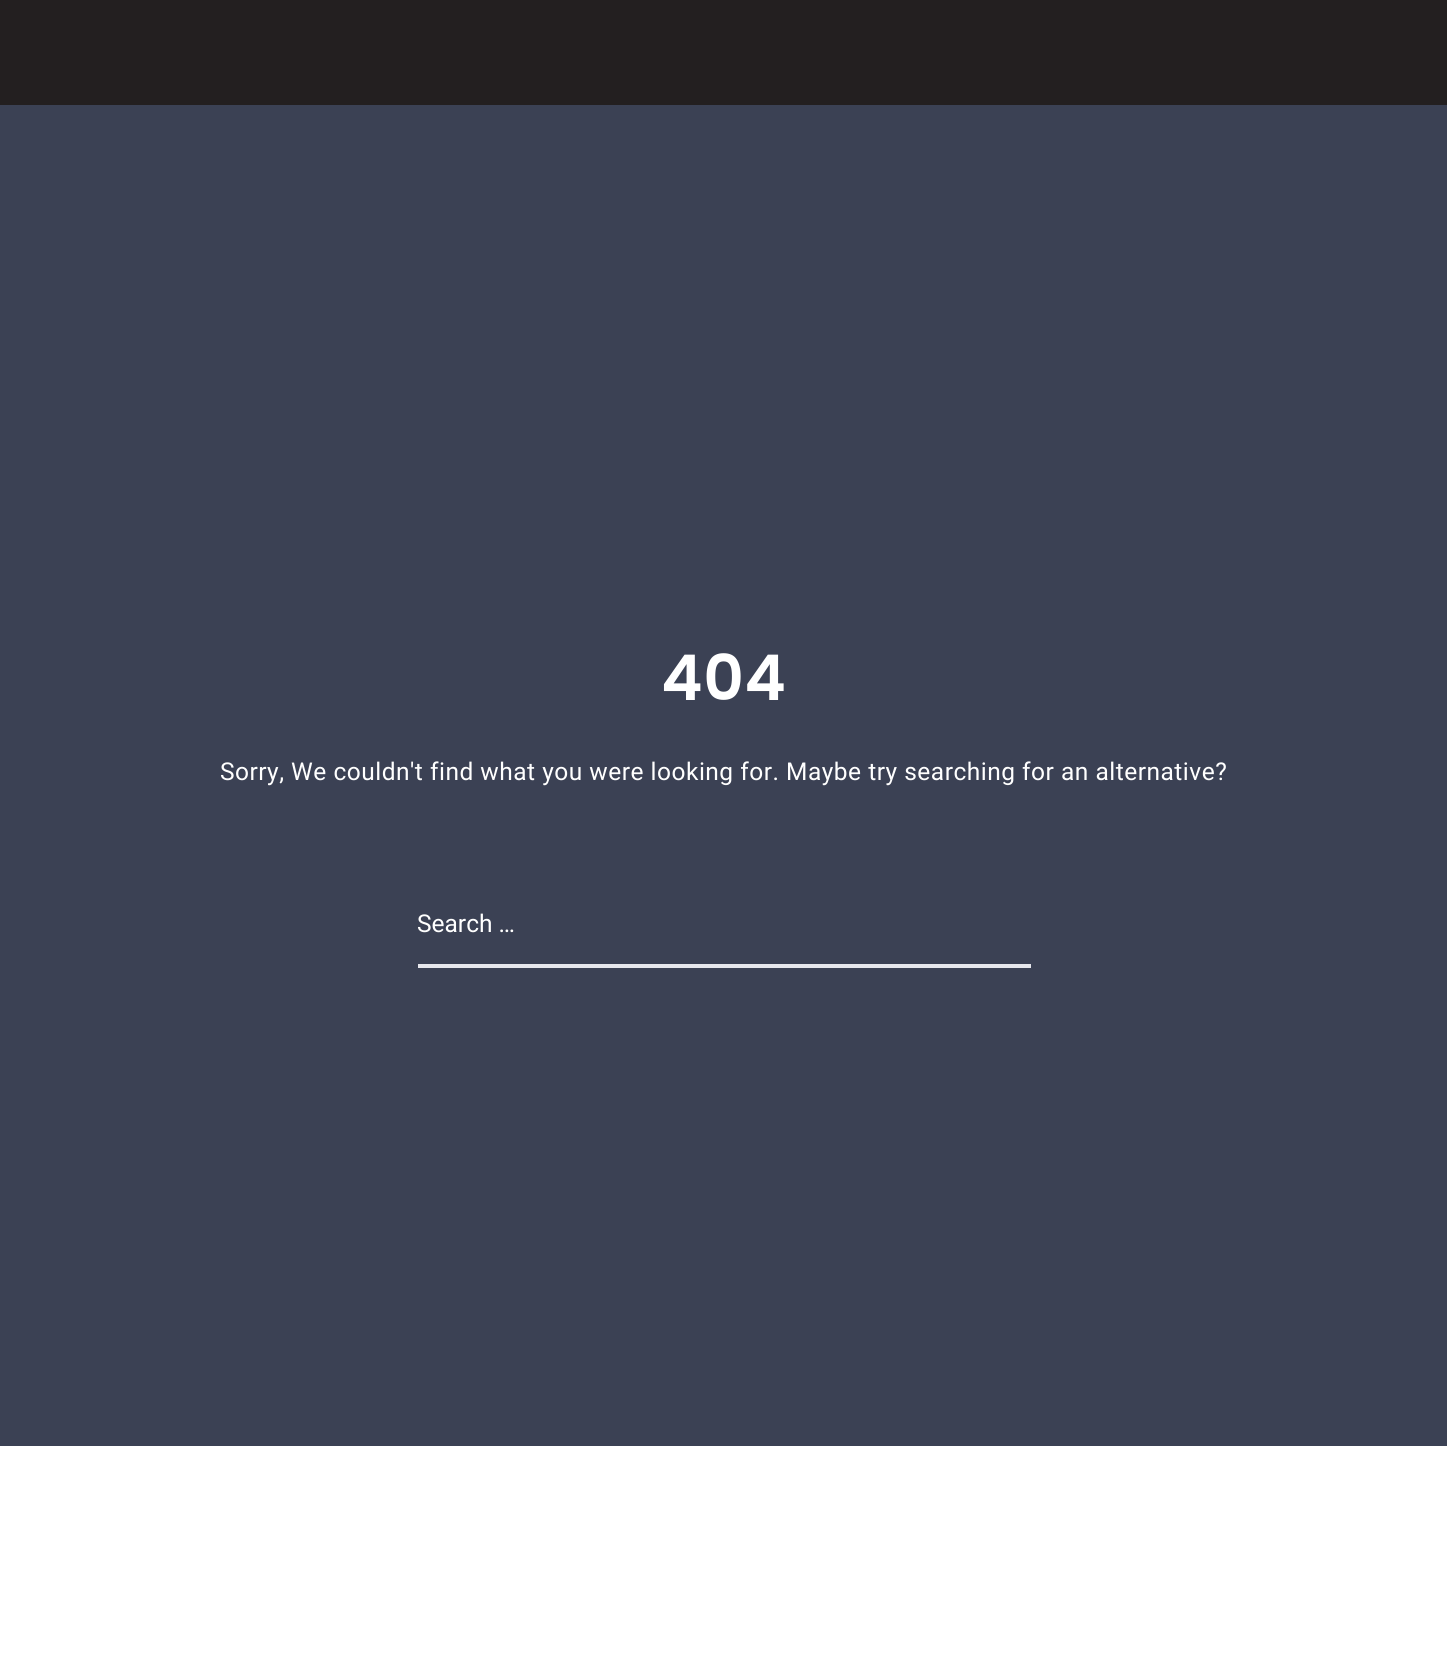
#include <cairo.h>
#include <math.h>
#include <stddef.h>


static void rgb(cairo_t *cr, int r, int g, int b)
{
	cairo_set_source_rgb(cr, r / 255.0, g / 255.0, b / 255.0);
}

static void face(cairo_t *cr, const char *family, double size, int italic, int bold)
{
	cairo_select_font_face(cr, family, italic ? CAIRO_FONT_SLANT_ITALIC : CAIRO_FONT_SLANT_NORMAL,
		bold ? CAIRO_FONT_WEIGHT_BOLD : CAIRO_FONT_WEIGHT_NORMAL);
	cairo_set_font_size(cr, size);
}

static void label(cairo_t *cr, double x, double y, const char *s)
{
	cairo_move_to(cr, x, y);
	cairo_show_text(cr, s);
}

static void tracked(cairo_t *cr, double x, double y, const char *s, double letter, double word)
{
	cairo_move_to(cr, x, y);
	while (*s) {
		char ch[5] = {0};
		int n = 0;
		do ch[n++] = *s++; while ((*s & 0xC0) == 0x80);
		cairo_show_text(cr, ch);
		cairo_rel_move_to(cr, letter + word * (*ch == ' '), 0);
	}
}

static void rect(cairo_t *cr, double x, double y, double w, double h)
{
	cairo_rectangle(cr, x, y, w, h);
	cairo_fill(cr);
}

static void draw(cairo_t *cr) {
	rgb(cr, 255, 255, 255);
	cairo_paint(cr);
	rgb(cr, 35, 31, 32);
	rect(cr, 0, 0, 1447, 105);
	rgb(cr, 59, 65, 84);
	rect(cr, 0, 105, 1447, 1341);
	face(cr, "Poppins SemiBold", 63, 0, 0);
	rgb(cr, 255, 255, 255);
	tracked(cr, 661, 700, "404", 0.5, 0);
	face(cr, "Roboto", 24.5, 0, 0);
	tracked(cr, 220, 780, "Sorry, We couldn't find what you were looking for. Maybe try searching for an alternative?", 0.5, 0);
	rgb(cr, 231, 231, 237);
	rect(cr, 418, 964, 613, 4);
	rgb(cr, 255, 255, 255);
	label(cr, 417, 932, "Search …");
}

int main(void) {
	cairo_surface_t *surface = cairo_image_surface_create(CAIRO_FORMAT_RGB24, 1447, 1675);
	cairo_t *cr = cairo_create(surface);
	cairo_font_options_t *options = cairo_font_options_create();
	cairo_font_options_set_hint_metrics(options, CAIRO_HINT_METRICS_OFF);
	cairo_font_options_set_hint_style(options, CAIRO_HINT_STYLE_NONE);
	cairo_set_font_options(cr, options);
	cairo_set_miter_limit(cr, 4);
	draw(cr);
	cairo_surface_write_to_png(surface, "render.png");
	cairo_font_options_destroy(options);
	cairo_destroy(cr);
	cairo_surface_destroy(surface);
	return 0;
}
